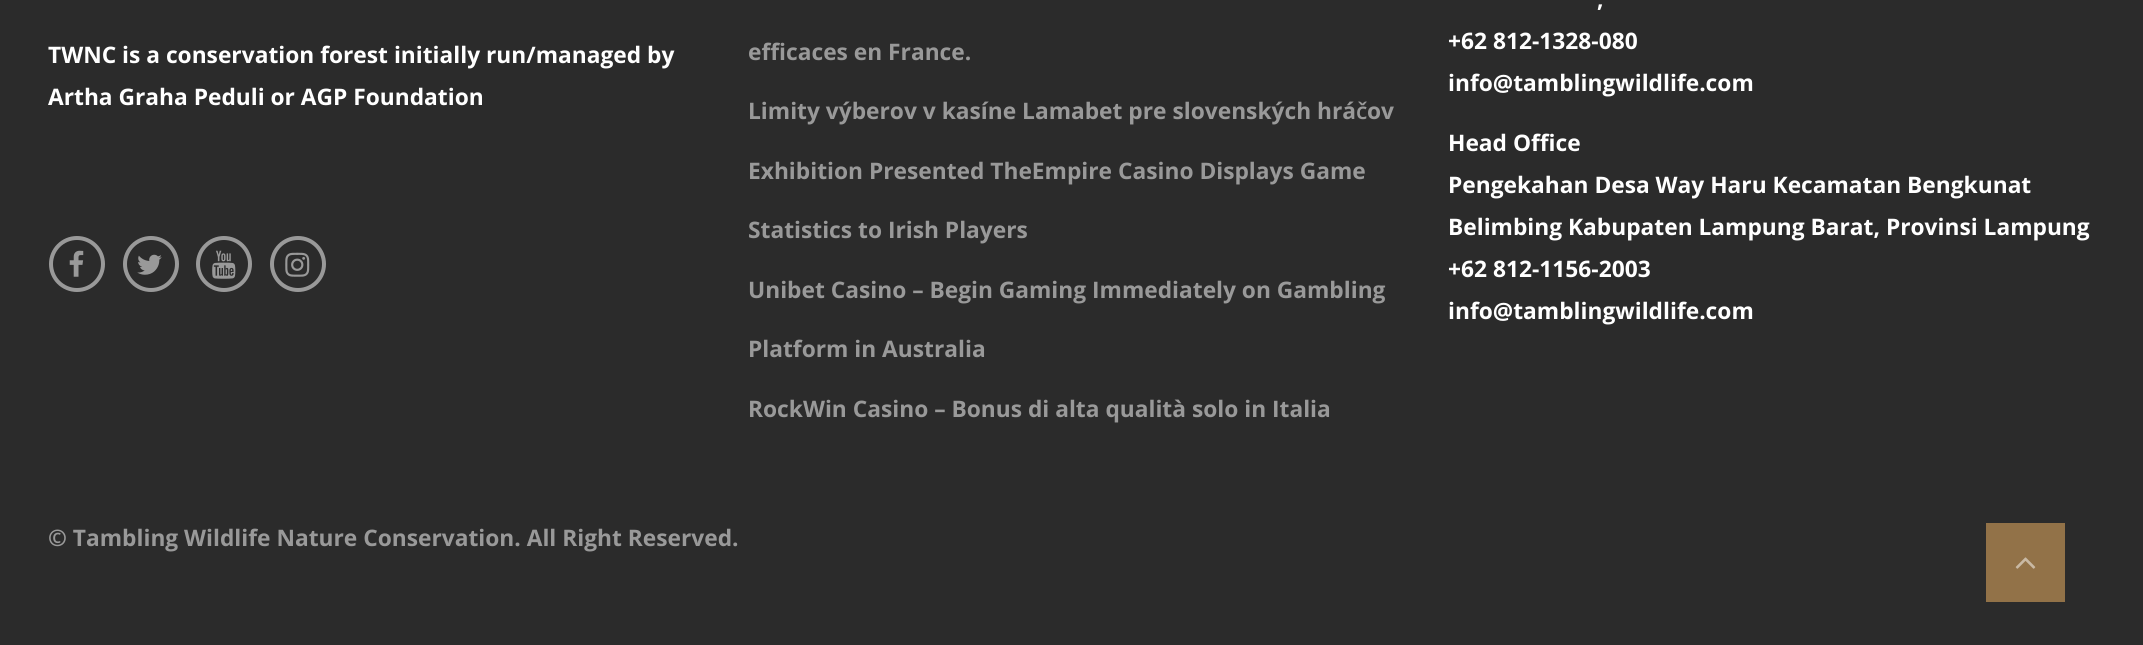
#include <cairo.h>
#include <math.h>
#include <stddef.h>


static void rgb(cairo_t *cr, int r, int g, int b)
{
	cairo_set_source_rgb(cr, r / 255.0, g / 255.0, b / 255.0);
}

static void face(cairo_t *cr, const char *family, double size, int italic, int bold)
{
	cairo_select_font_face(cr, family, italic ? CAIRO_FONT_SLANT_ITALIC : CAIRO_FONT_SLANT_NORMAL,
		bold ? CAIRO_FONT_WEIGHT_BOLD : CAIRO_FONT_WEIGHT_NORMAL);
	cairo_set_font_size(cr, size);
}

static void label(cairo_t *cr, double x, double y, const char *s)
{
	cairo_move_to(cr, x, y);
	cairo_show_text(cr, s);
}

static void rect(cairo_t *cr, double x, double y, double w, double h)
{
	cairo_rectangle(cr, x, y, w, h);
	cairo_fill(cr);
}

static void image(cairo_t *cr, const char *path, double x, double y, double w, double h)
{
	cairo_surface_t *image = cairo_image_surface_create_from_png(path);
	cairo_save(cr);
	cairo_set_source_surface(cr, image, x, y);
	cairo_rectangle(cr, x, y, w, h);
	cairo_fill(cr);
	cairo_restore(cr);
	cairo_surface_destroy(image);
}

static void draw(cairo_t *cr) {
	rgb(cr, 43, 43, 43);
	cairo_paint(cr);
	face(cr, "Open Sans", 22.75, 0, 1);
	rgb(cr, 255, 255, 255);
	label(cr, 48, 63, "TWNC is a conservation forest initially run/managed by");
	label(cr, 48, 105, "Artha Graha Peduli or AGP Foundation");
	cairo_new_path(cr);
	cairo_arc(cr, 77, 264, 26, 0, 2 * M_PI);
	rgb(cr, 153, 153, 153);
	cairo_set_line_width(cr, 4);
	cairo_stroke(cr);
	image(cr, "image0.png", 69, 250, 15, 27);
	cairo_arc(cr, 151, 264, 26, 0, 2 * M_PI);
	cairo_stroke(cr);
	image(cr, "image1.png", 137, 254, 25, 21);
	cairo_arc(cr, 224, 264, 26, 0, 2 * M_PI);
	cairo_stroke(cr);
	image(cr, "image2.png", 212, 250, 24, 29);
	cairo_arc(cr, 298, 264, 26, 0, 2 * M_PI);
	cairo_stroke(cr);
	image(cr, "image3.png", 285, 252, 25, 25);
	label(cr, 748, 60, "efficaces en France.");
	label(cr, 748, 119, "Limity výberov v kasíne Lamabet pre slovenských hrá");
	face(cr, "Open Sans SemiBold", 22.75, 0, 0);
	label(cr, 1356, 119, "č");
	face(cr, "Open Sans", 22.75, 0, 1);
	label(cr, 1367, 119, "ov");
	label(cr, 748, 179, "Exhibition Presented TheEmpire Casino Displays Game");
	label(cr, 748, 238, "Statistics to Irish Players");
	label(cr, 748, 298, "Unibet Casino – Begin Gaming Immediately on Gambling");
	label(cr, 748, 357, "Platform in Australia");
	label(cr, 748, 417, "RockWin Casino – Bonus di alta qualità solo in Italia");
	rgb(cr, 255, 255, 255);
	label(cr, 1597, 7, ",");
	label(cr, 1448, 49, "+62 812-1328-080");
	label(cr, 1448, 91, "info@tamblingwildlife.com");
	label(cr, 1448, 151, "Head Office");
	label(cr, 1448, 193, "Pengekahan Desa Way Haru Kecamatan Bengkunat");
	label(cr, 1448, 235, "Belimbing Kabupaten Lampung Barat, Provinsi Lampung");
	label(cr, 1448, 277, "+62 812-1156-2003");
	label(cr, 1448, 319, "info@tamblingwildlife.com");
	rgb(cr, 153, 153, 153);
	label(cr, 48, 546, "© Tambling Wildlife Nature Conservation. All Right Reserved.");
	rgb(cr, 146, 114, 72);
	rect(cr, 1986, 523, 79, 79);
	image(cr, "image4.png", 2015, 557, 21, 12);
}

int main(void) {
	cairo_surface_t *surface = cairo_image_surface_create(CAIRO_FORMAT_RGB24, 2143, 645);
	cairo_t *cr = cairo_create(surface);
	cairo_font_options_t *options = cairo_font_options_create();
	cairo_font_options_set_hint_metrics(options, CAIRO_HINT_METRICS_OFF);
	cairo_font_options_set_hint_style(options, CAIRO_HINT_STYLE_NONE);
	cairo_set_font_options(cr, options);
	cairo_set_miter_limit(cr, 4);
	draw(cr);
	cairo_surface_write_to_png(surface, "render.png");
	cairo_font_options_destroy(options);
	cairo_destroy(cr);
	cairo_surface_destroy(surface);
	return 0;
}
